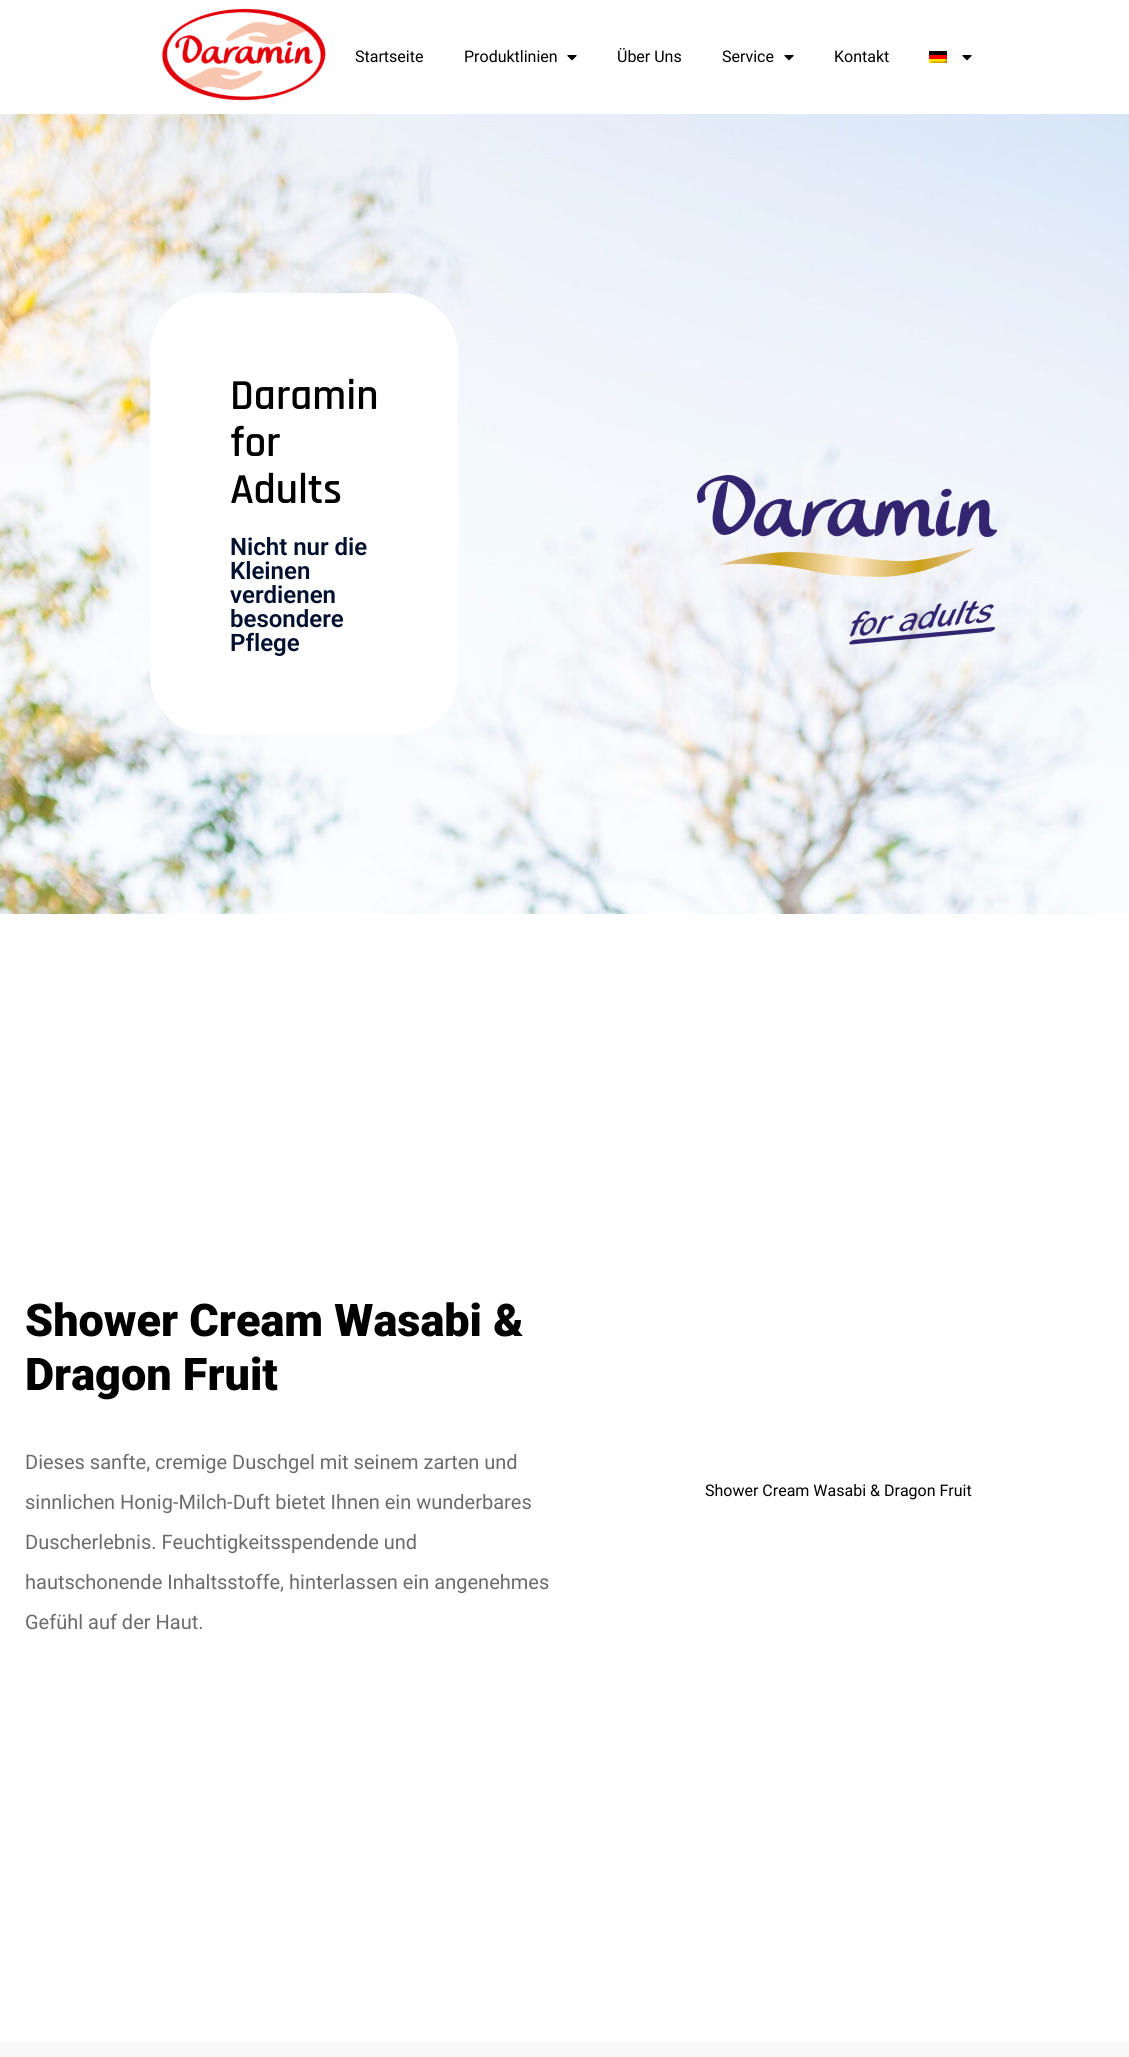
#include <cairo.h>
#include <math.h>
#include <stddef.h>


static void rgb(cairo_t *cr, int r, int g, int b)
{
	cairo_set_source_rgb(cr, r / 255.0, g / 255.0, b / 255.0);
}

static void face(cairo_t *cr, const char *family, double size, int italic, int bold)
{
	cairo_select_font_face(cr, family, italic ? CAIRO_FONT_SLANT_ITALIC : CAIRO_FONT_SLANT_NORMAL,
		bold ? CAIRO_FONT_WEIGHT_BOLD : CAIRO_FONT_WEIGHT_NORMAL);
	cairo_set_font_size(cr, size);
}

static void label(cairo_t *cr, double x, double y, const char *s)
{
	cairo_move_to(cr, x, y);
	cairo_show_text(cr, s);
}

static void rect(cairo_t *cr, double x, double y, double w, double h)
{
	cairo_rectangle(cr, x, y, w, h);
	cairo_fill(cr);
}

static void rrect(cairo_t *cr, double x, double y, double w, double h, double r)
{
	cairo_new_sub_path(cr);
	cairo_arc(cr, x + w - r, y + h - r, r, 0, M_PI / 2);
	cairo_arc(cr, x + r, y + h - r, r, M_PI / 2, M_PI);
	cairo_arc(cr, x + r, y + r, r, M_PI, 1.5 * M_PI);
	cairo_arc(cr, x + w - r, y + r, r, 1.5 * M_PI, 2 * M_PI);
	cairo_close_path(cr);
}

static void image(cairo_t *cr, const char *path, double x, double y, double w, double h)
{
	cairo_surface_t *image = cairo_image_surface_create_from_png(path);
	cairo_save(cr);
	cairo_set_source_surface(cr, image, x, y);
	cairo_rectangle(cr, x, y, w, h);
	cairo_fill(cr);
	cairo_restore(cr);
	cairo_surface_destroy(image);
}

static void draw(cairo_t *cr) {
	rgb(cr, 255, 255, 255);
	cairo_paint(cr);
	image(cr, "image0.png", 162, 8, 164, 93);
	face(cr, "Roboto", 16, 0, 0);
	rgb(cr, 0, 0, 0);
	label(cr, 355, 62, "Startseite");
	label(cr, 464, 62, "Produktlinien");
	image(cr, "image1.png", 567, 55, 10, 6);
	label(cr, 617, 62, "Über Uns");
	label(cr, 722, 62, "Service");
	image(cr, "image1.png", 784, 55, 10, 6);
	label(cr, 834, 62, "Kontakt");
	image(cr, "image2.png", 929, 51, 18, 12);
	image(cr, "image1.png", 962, 55, 10, 6);
	image(cr, "image3.png", 0, 114, 1129, 800);
	rgb(cr, 255, 255, 255);
	rrect(cr, 150, 293, 308, 442, 60);
	cairo_fill(cr);
	face(cr, "Rajdhani SemiBold", 43, 0, 0);
	rgb(cr, 0, 0, 0);
	label(cr, 230, 409, "Daramin");
	label(cr, 230, 456, "for");
	label(cr, 230, 503, "Adults");
	face(cr, "Roboto SemiBold", 24, 0, 0);
	rgb(cr, 0, 16, 46);
	label(cr, 230, 555, "Nicht nur die");
	label(cr, 230, 579, "Kleinen");
	label(cr, 230, 603, "verdienen");
	label(cr, 230, 627, "besondere");
	label(cr, 230, 651, "Pflege");
	image(cr, "image4.png", 697, 475, 300, 170);
	face(cr, "Roboto Black", 45, 0, 0);
	rgb(cr, 0, 0, 0);
	label(cr, 25, 1336, "Shower Cream Wasabi &");
	label(cr, 25, 1390, "Dragon Fruit");
	face(cr, "Roboto", 20, 0, 0);
	rgb(cr, 107, 107, 107);
	label(cr, 25, 1469, "Dieses sanfte, cremige Duschgel mit seinem zarten und");
	label(cr, 25, 1509, "sinnlichen Honig-Milch-Duft bietet Ihnen ein wunderbares");
	label(cr, 25, 1549, "Duscherlebnis. Feuchtigkeitsspendende und");
	label(cr, 25, 1589, "hautschonende Inhaltsstoffe, hinterlassen ein angenehmes");
	label(cr, 25, 1629, "Gefühl auf der Haut.");
	face(cr, "Roboto", 16, 0, 0);
	rgb(cr, 0, 0, 0);
	label(cr, 705, 1496, "Shower Cream Wasabi & Dragon Fruit");
	rgb(cr, 248, 248, 248);
	rect(cr, 0, 2042, 1129, 15);
}

int main(void) {
	cairo_surface_t *surface = cairo_image_surface_create(CAIRO_FORMAT_RGB24, 1129, 2057);
	cairo_t *cr = cairo_create(surface);
	cairo_font_options_t *options = cairo_font_options_create();
	cairo_font_options_set_hint_metrics(options, CAIRO_HINT_METRICS_OFF);
	cairo_font_options_set_hint_style(options, CAIRO_HINT_STYLE_NONE);
	cairo_set_font_options(cr, options);
	cairo_set_miter_limit(cr, 4);
	draw(cr);
	cairo_surface_write_to_png(surface, "render.png");
	cairo_font_options_destroy(options);
	cairo_destroy(cr);
	cairo_surface_destroy(surface);
	return 0;
}
